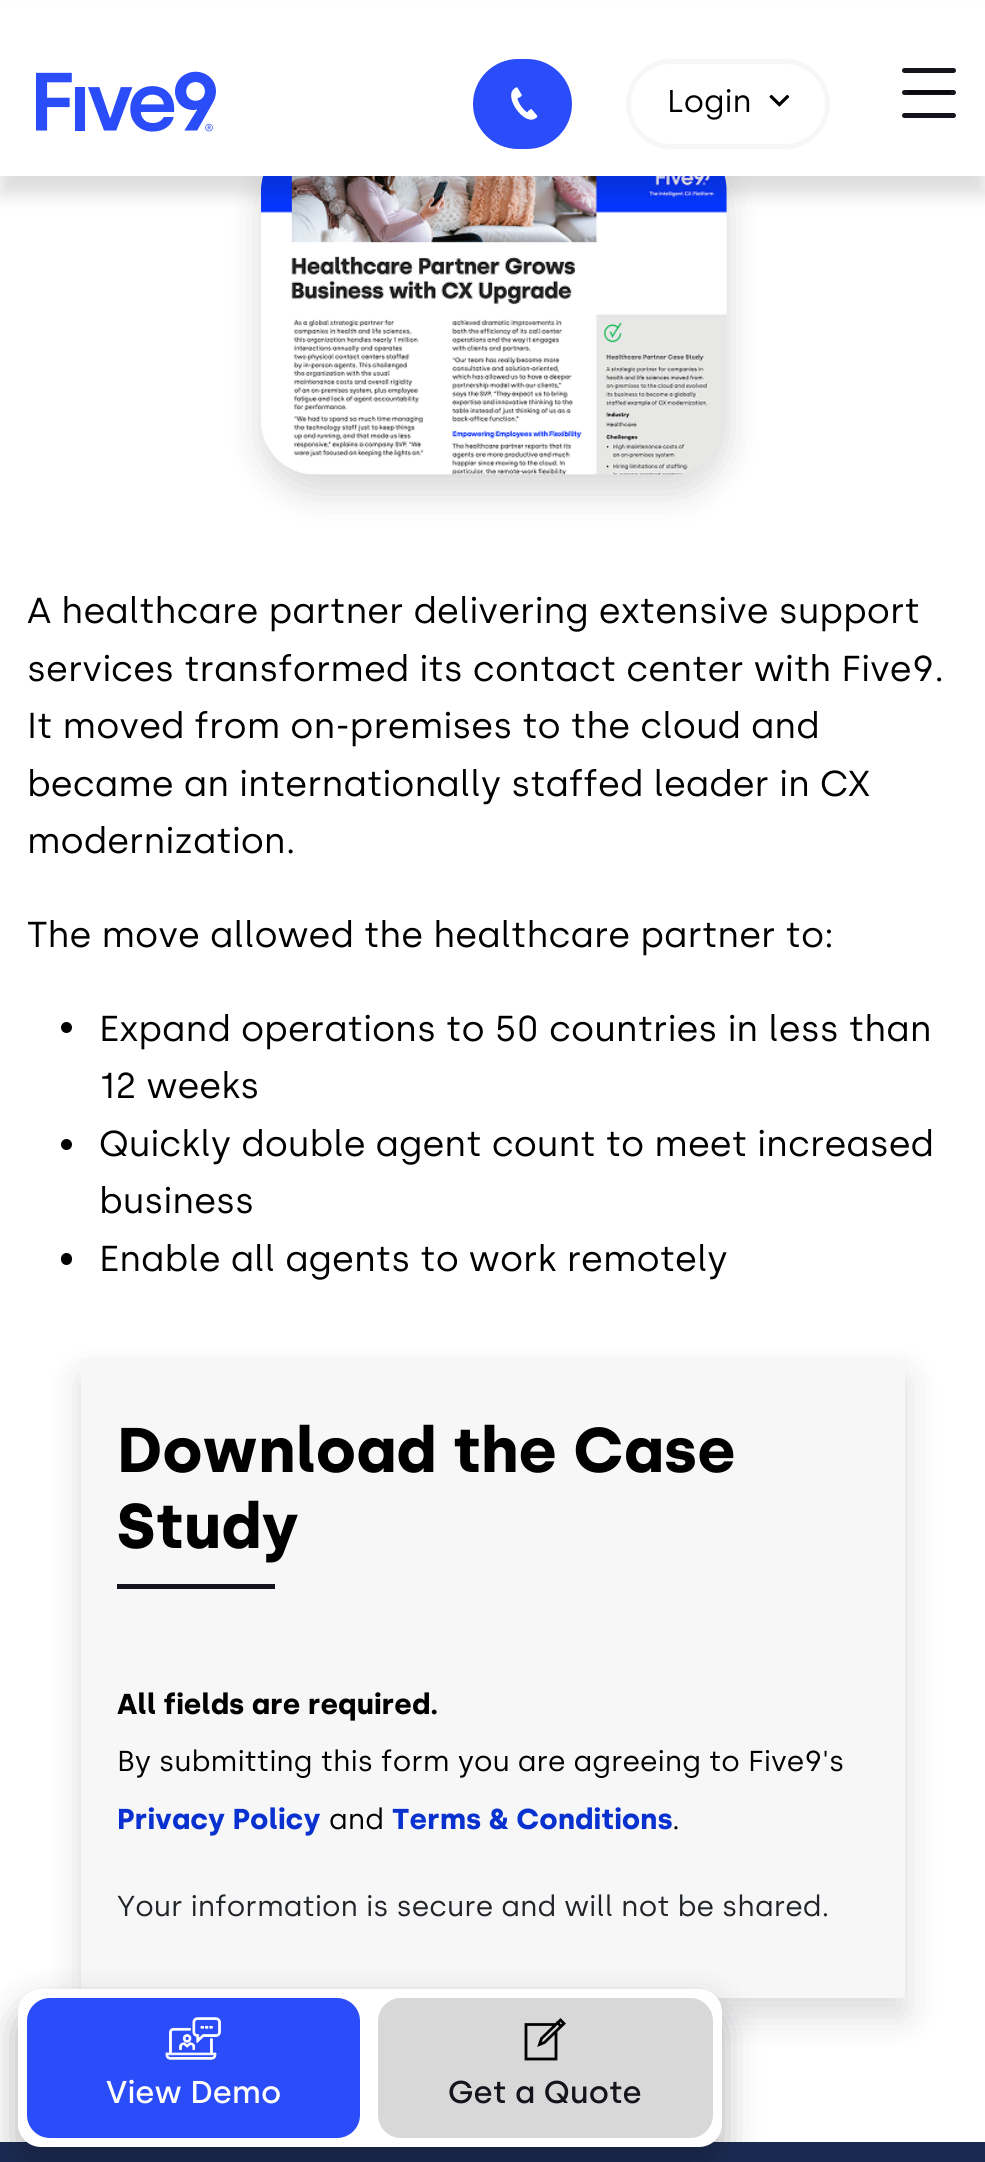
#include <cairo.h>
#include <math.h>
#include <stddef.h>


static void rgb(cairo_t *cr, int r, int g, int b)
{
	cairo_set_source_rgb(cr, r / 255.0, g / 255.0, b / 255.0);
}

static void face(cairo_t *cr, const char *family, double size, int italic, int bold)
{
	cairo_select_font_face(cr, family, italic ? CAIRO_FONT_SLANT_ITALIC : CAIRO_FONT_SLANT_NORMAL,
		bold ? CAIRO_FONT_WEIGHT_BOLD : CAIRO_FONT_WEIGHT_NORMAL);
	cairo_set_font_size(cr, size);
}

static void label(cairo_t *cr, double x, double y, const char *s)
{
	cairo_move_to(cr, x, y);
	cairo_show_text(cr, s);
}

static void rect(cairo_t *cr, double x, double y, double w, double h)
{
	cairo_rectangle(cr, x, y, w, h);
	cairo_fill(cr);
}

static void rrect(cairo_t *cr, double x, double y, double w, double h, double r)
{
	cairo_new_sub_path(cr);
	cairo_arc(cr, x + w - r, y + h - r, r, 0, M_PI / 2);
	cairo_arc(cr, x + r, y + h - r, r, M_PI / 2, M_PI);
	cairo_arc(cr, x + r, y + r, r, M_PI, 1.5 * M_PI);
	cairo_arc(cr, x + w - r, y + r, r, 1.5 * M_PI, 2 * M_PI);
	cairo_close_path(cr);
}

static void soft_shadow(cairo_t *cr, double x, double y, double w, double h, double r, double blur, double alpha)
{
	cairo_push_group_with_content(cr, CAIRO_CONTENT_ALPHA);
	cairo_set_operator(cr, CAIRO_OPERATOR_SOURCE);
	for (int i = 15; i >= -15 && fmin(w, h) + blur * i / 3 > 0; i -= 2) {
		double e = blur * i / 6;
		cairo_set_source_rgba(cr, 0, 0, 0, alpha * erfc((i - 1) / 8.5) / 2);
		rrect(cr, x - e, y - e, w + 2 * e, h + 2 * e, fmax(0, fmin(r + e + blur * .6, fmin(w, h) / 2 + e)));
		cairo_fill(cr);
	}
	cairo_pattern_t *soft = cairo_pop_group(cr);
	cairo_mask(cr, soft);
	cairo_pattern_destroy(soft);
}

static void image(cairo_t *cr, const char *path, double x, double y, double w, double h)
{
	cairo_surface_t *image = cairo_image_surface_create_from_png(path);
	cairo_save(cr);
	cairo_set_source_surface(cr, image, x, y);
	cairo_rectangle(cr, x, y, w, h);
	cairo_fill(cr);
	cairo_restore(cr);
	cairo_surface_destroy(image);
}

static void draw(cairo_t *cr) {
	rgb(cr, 255, 255, 255);
	cairo_paint(cr);
	rgb(cr, 0, 0, 0);
	soft_shadow(cr, 261, 155, 466, 338, 54, 18, 0.15);
	image(cr, "image3.png", 261, 176, 466, 299);
	rgb(cr, 21, 20, 29);
	soft_shadow(cr, 0, 18, 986, 176, 0, 9, 0.15);
	rgb(cr, 255, 255, 255);
	rect(cr, 0, 5, 985, 171);
	image(cr, "image0.png", 36, 71, 180, 61);
	rgb(cr, 21, 20, 29);
	rrect(cr, 902, 90, 54, 5, 2.5);
	cairo_fill(cr);
	cairo_save(cr);
	rrect(cr, 902, 90, 54, 5, 2.5);
	cairo_clip(cr);
	cairo_new_path(cr);
	cairo_move_to(cr, 909.5, 78);
	cairo_line_to(cr, 949, 78);
	cairo_move_to(cr, 909.5, 92);
	cairo_line_to(cr, 949, 92);
	cairo_move_to(cr, 909.5, 106.5);
	cairo_line_to(cr, 949, 106.5);
	rgb(cr, 9, 9, 13);
	cairo_set_line_width(cr, 3.6);
	cairo_set_line_cap(cr, CAIRO_LINE_CAP_ROUND);
	cairo_stroke(cr);
	cairo_restore(cr);
	rrect(cr, 902, 68, 54, 5, 2.5);
	cairo_fill(cr);
	rrect(cr, 902, 113, 54, 5, 2.5);
	cairo_fill(cr);
	rgb(cr, 42, 76, 249);
	rrect(cr, 473, 59, 99, 90, 45);
	cairo_fill(cr);
	image(cr, "image1.png", 511, 87, 27, 33);
	rrect(cr, 628.5, 61.5, 199, 85, 42.5);
	rgb(cr, 247, 247, 247);
	cairo_set_line_width(cr, 5);
	cairo_stroke(cr);
	face(cr, "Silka", 31.5, 0, 0);
	rgb(cr, 0, 0, 0);
	label(cr, 667, 112, "Login");
	image(cr, "image2.png", 769, 94, 21, 13);
	face(cr, "Silka", 36, 0, 0);
	label(cr, 27, 623, "A healthcare partner delivering extensive support");
	label(cr, 27, 681, "services transformed its contact center with Five9.");
	label(cr, 27, 738, "It moved from on-premises to the cloud and");
	label(cr, 27, 796, "became an internationally staffed leader in CX");
	label(cr, 27, 853, "modernization.");
	label(cr, 27, 947, "The move allowed the healthcare partner to:");
	cairo_new_path(cr);
	cairo_arc(cr, 66.5, 1027.5, 5.5, 0, 2 * M_PI);
	cairo_fill(cr);
	label(cr, 99, 1041, "Expand operations to 50 countries in less than");
	label(cr, 99, 1098, "12 weeks");
	cairo_new_path(cr);
	cairo_arc(cr, 66.5, 1144.5, 5.5, 0, 2 * M_PI);
	cairo_fill(cr);
	label(cr, 99, 1156, "Quickly double agent count to meet increased");
	label(cr, 99, 1213, "business");
	rrect(cr, 61, 1253, 11, 12, 5.5);
	cairo_fill(cr);
	label(cr, 99, 1271, "Enable all agents to work remotely");
	rgb(cr, 21, 20, 29);
	soft_shadow(cr, 81, 1377, 824, 639, 0, 18, 0.15);
	rgb(cr, 247, 247, 247);
	rect(cr, 81, 1359, 824, 639);
	face(cr, "Silka", 63, 0, 1);
	rgb(cr, 0, 0, 0);
	label(cr, 117, 1472, "Download the Case");
	label(cr, 117, 1548, "Study");
	rgb(cr, 21, 20, 29);
	rect(cr, 117, 1584, 158, 5);
	face(cr, "Silka", 28.8, 0, 1);
	rgb(cr, 0, 0, 0);
	label(cr, 117, 1714, "All fields are required.");
	face(cr, "Silka", 28.8, 0, 0);
	label(cr, 117, 1771, "By submitting this form you are agreeing to Five9's");
	face(cr, "Silka", 28.8, 0, 1);
	rgb(cr, 9, 49, 208);
	label(cr, 117, 1829, "Privacy Policy");
	face(cr, "Silka", 28.8, 0, 0);
	rgb(cr, 0, 0, 0);
	label(cr, 329, 1829, "and");
	face(cr, "Silka", 28.8, 0, 1);
	rgb(cr, 9, 49, 208);
	label(cr, 392, 1829, "Terms & Conditions");
	face(cr, "Silka", 28.8, 0, 0);
	rgb(cr, 0, 0, 0);
	label(cr, 672, 1829, ".");
	rgb(cr, 33, 37, 41);
	label(cr, 117, 1916, "Your information is secure and will not be shared.");
	rgb(cr, 25, 42, 82);
	rect(cr, 0, 2142, 985, 20);
	rgb(cr, 21, 20, 29);
	soft_shadow(cr, 18, 2007, 704, 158, 23, 18, 0.35);
	rgb(cr, 255, 255, 255);
	rrect(cr, 18, 1989, 704, 158, 23);
	cairo_fill(cr);
	rgb(cr, 42, 76, 249);
	rrect(cr, 27, 1998, 333, 140, 23);
	cairo_fill(cr);
	image(cr, "image4.png", 165, 2017, 56, 43);
	face(cr, "Silka Medium", 31.5, 0, 0);
	rgb(cr, 255, 255, 255);
	label(cr, 106, 2103, "View Demo");
	rgb(cr, 216, 216, 216);
	rrect(cr, 378, 1998, 335, 140, 23);
	cairo_fill(cr);
	cairo_new_path(cr);
	cairo_move_to(cr, 564, 2023.5);
	cairo_line_to(cr, 560.5, 2020);
	cairo_line_to(cr, 541.5, 2038.5);
	cairo_line_to(cr, 539.5, 2044.5);
	cairo_line_to(cr, 544.5, 2042.5);
	cairo_close_path(cr);
	cairo_move_to(cr, 557.5, 2022.5);
	cairo_line_to(cr, 561, 2026.5);
	cairo_move_to(cr, 556, 2032);
	cairo_line_to(cr, 556, 2059);
	cairo_line_to(cr, 526, 2059);
	cairo_line_to(cr, 526, 2024.5);
	cairo_line_to(cr, 555, 2024.5);
	rgb(cr, 0, 0, 0);
	cairo_set_line_width(cr, 2.8);
	cairo_set_line_cap(cr, CAIRO_LINE_CAP_ROUND);
	cairo_stroke(cr);
	rgb(cr, 21, 20, 29);
	label(cr, 448, 2103, "Get a Quote");
}

int main(void) {
	cairo_surface_t *surface = cairo_image_surface_create(CAIRO_FORMAT_RGB24, 985, 2162);
	cairo_t *cr = cairo_create(surface);
	cairo_font_options_t *options = cairo_font_options_create();
	cairo_font_options_set_hint_metrics(options, CAIRO_HINT_METRICS_OFF);
	cairo_font_options_set_hint_style(options, CAIRO_HINT_STYLE_NONE);
	cairo_set_font_options(cr, options);
	cairo_set_miter_limit(cr, 4);
	draw(cr);
	cairo_surface_write_to_png(surface, "render.png");
	cairo_font_options_destroy(options);
	cairo_destroy(cr);
	cairo_surface_destroy(surface);
	return 0;
}
